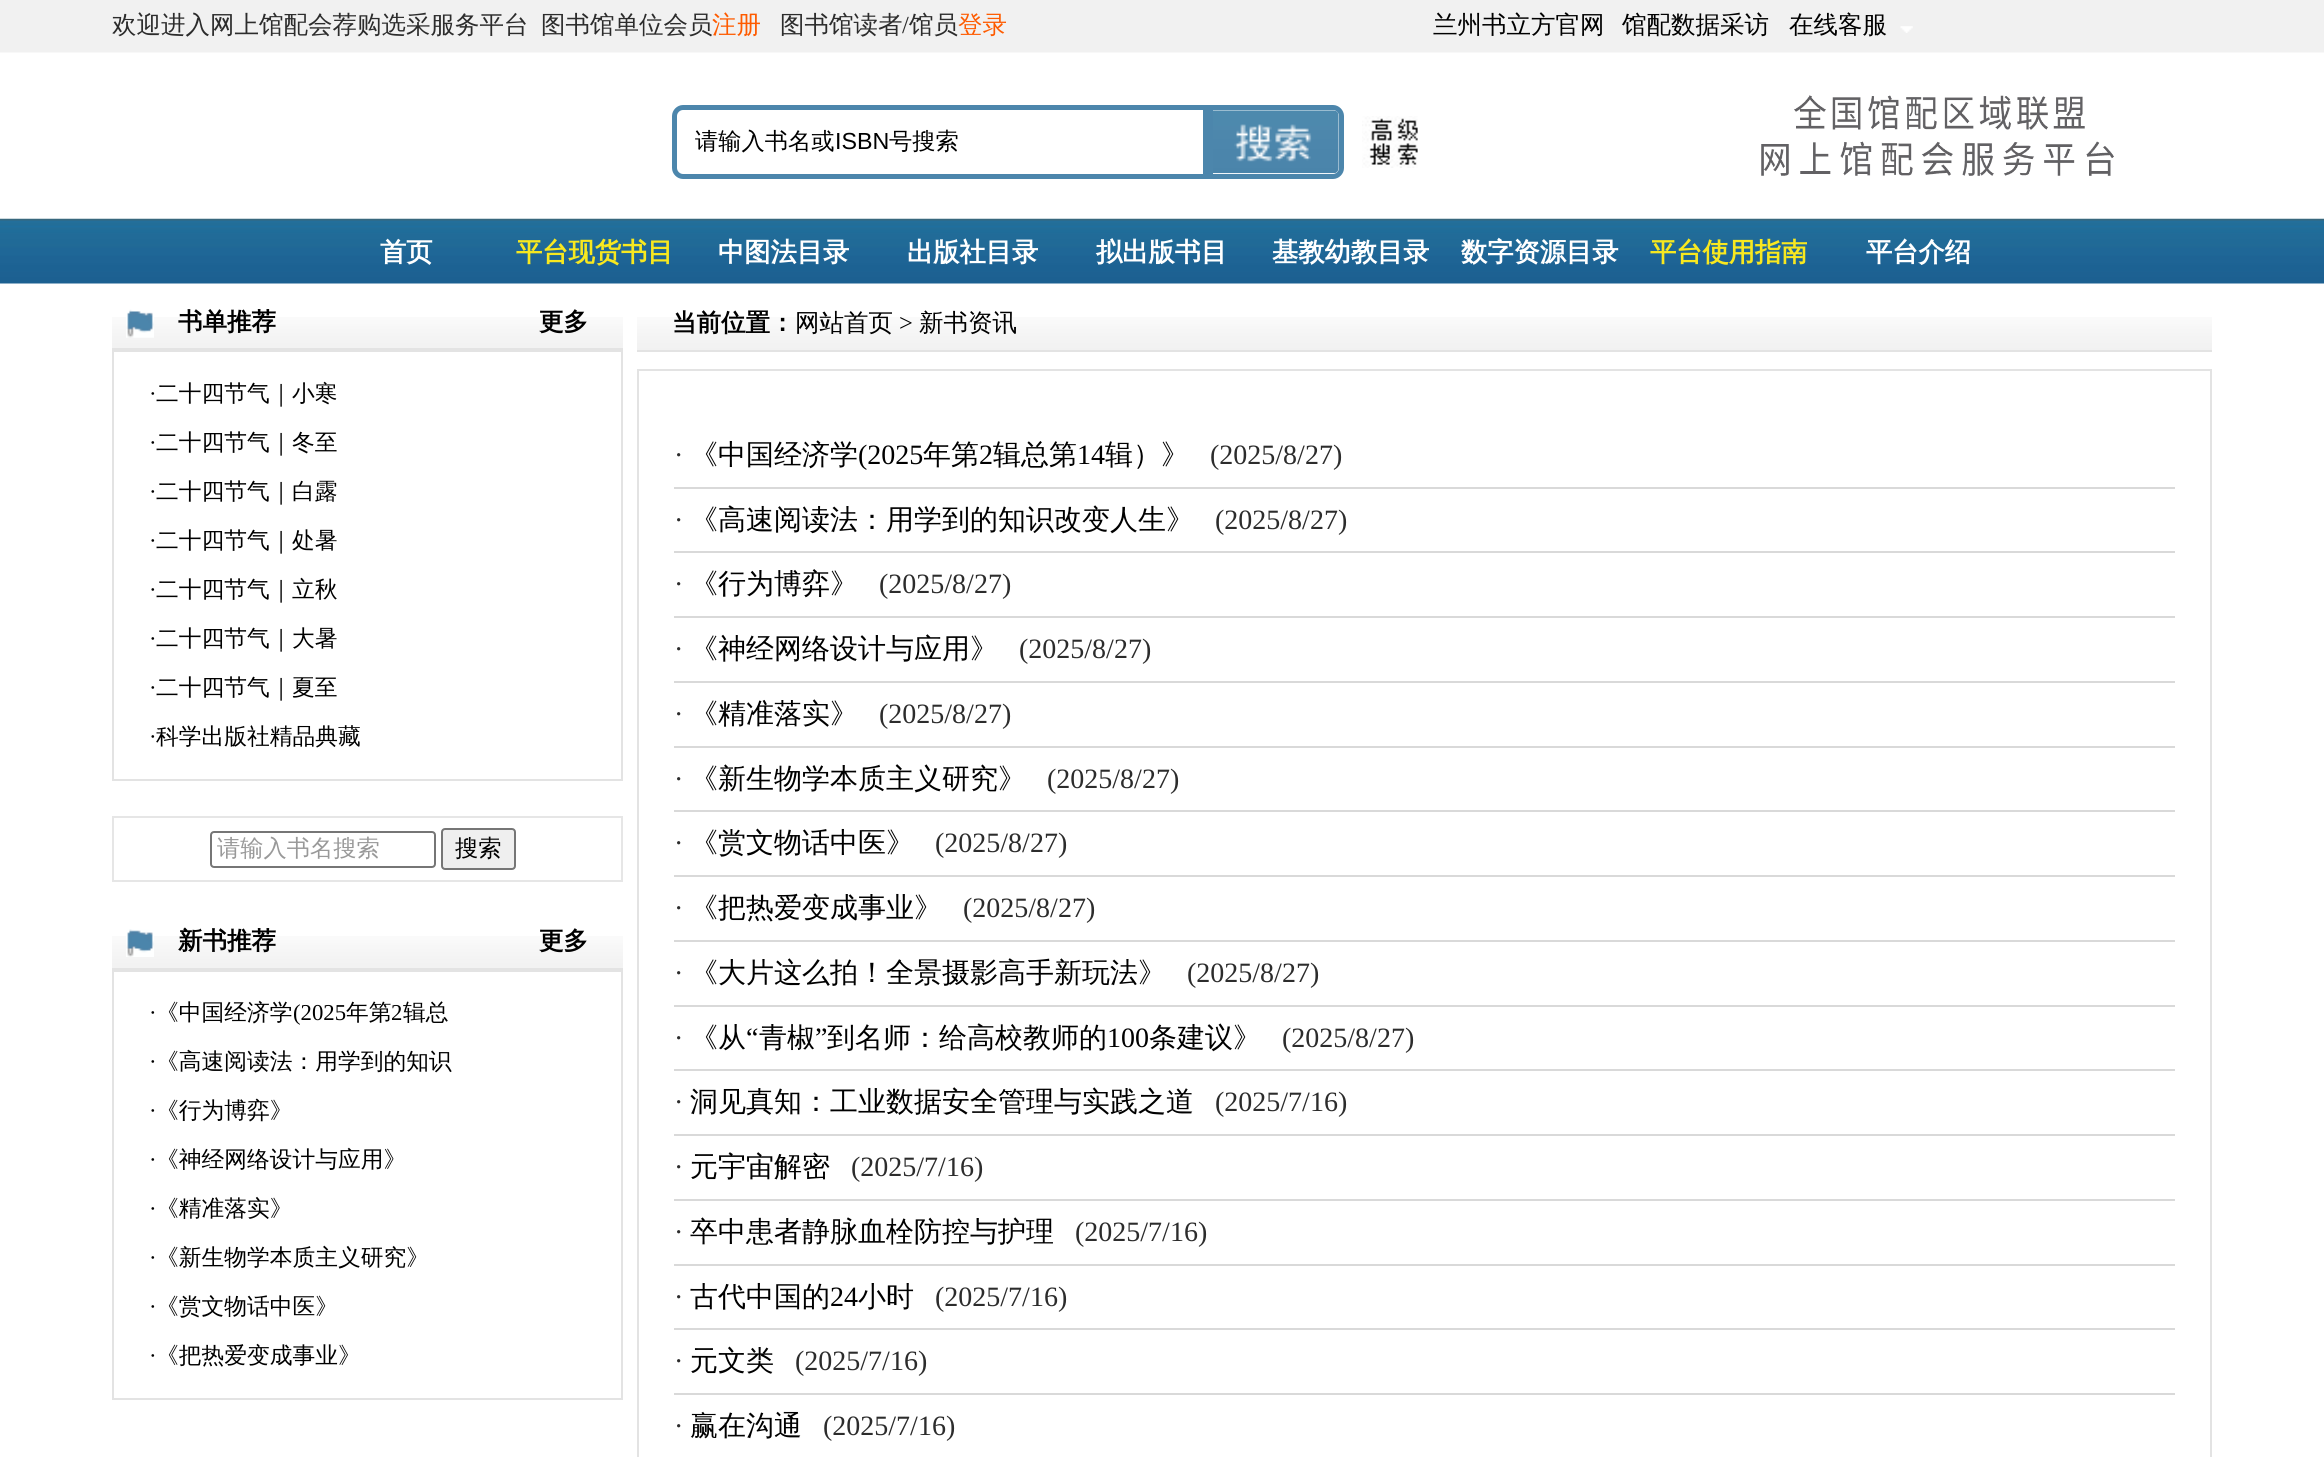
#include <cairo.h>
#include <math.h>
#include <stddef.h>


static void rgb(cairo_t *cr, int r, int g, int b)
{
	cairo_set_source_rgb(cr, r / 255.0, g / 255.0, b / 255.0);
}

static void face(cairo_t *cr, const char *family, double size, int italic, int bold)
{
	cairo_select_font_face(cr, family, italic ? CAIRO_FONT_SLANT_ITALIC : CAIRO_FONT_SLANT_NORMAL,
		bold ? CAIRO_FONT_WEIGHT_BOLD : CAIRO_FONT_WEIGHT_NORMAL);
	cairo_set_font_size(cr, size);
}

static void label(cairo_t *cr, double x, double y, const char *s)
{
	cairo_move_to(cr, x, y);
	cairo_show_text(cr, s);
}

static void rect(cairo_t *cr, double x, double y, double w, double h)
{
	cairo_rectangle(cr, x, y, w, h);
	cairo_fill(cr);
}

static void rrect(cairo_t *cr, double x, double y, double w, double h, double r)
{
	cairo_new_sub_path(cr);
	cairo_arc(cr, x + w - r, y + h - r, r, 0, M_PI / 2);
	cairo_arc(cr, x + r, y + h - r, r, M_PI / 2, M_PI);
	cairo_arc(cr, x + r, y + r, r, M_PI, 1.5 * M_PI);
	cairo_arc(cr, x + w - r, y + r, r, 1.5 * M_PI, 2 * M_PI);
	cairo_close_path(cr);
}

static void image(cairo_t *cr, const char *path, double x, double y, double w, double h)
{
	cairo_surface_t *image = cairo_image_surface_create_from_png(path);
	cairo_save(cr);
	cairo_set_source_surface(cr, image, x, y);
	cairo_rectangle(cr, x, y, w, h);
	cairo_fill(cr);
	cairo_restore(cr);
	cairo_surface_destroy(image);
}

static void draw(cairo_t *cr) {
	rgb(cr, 255, 255, 255);
	cairo_paint(cr);
	image(cr, "image0.png", 0, 0, 2324, 284);
	face(cr, "WenQuanYi Zen Hei Medium", 24.5, 0, 0);
	rgb(cr, 44, 44, 44);
	label(cr, 112, 33, "欢迎进入网上馆配会荐购选采服务平台");
	label(cr, 541, 33, "图书馆单位会员");
	rgb(cr, 254, 91, 0);
	label(cr, 712, 33, "注册");
	rgb(cr, 44, 44, 44);
	label(cr, 780, 33, "图书馆读者");
	face(cr, "Liberation Serif", 24.5, 0, 0);
	label(cr, 902, 33, "/");
	face(cr, "WenQuanYi Zen Hei Medium", 24.5, 0, 0);
	label(cr, 909, 33, "馆员");
	rgb(cr, 254, 91, 0);
	label(cr, 958, 33, "登录");
	rgb(cr, 0, 0, 0);
	label(cr, 1433, 33, "兰州书立方官网");
	label(cr, 1622, 33, "馆配数据采访");
	label(cr, 1789, 33, "在线客服");
	image(cr, "image1.png", 1900, 26, 13, 7);
	cairo_new_path(cr);
	cairo_move_to(cr, 683, 107.5);
	cairo_line_to(cr, 1205.5, 107.5);
	cairo_line_to(cr, 1205.5, 176.5);
	cairo_line_to(cr, 683, 176.5);
	cairo_curve_to(cr, 678.5, 176.5, 674.5, 172.5, 674.5, 168);
	cairo_line_to(cr, 674.5, 116);
	cairo_curve_to(cr, 674.5, 111.5, 678.5, 107.5, 683, 107.5);
	cairo_close_path(cr);
	rgb(cr, 76, 134, 172);
	cairo_set_line_width(cr, 5);
	cairo_stroke(cr);
	face(cr, "WenQuanYi Zen Hei Medium", 23.25, 0, 0);
	rgb(cr, 0, 0, 0);
	label(cr, 695, 149, "请输入书名或");
	face(cr, "Liberation Sans", 23.25, 0, 0);
	label(cr, 835, 149, "ISBN");
	face(cr, "WenQuanYi Zen Hei Medium", 23.25, 0, 0);
	label(cr, 889, 149, "号搜索");
	cairo_new_path(cr);
	cairo_move_to(cr, 1210.5, 107.5);
	cairo_line_to(cr, 1333, 107.5);
	cairo_curve_to(cr, 1337.5, 107.5, 1341.5, 111.5, 1341.5, 116);
	cairo_line_to(cr, 1341.5, 168);
	cairo_curve_to(cr, 1341.5, 172.5, 1337.5, 176.5, 1333, 176.5);
	cairo_line_to(cr, 1210.5, 176.5);
	cairo_close_path(cr);
	rgb(cr, 76, 134, 172);
	cairo_stroke(cr);
	image(cr, "image2.png", 1213, 110, 126, 64);
	image(cr, "image3.png", 1362, 116, 56, 52);
	image(cr, "image4.png", 1761, 95, 353, 81);
	image(cr, "image5.png", 0, 218, 2324, 62);
	face(cr, "WenQuanYi Zen Hei", 26.25, 0, 1);
	rgb(cr, 255, 255, 255);
	label(cr, 380, 261, "首页");
	rgb(cr, 248, 232, 31);
	label(cr, 516, 261, "平台现货书目");
	rgb(cr, 255, 255, 255);
	label(cr, 718, 261, "中图法目录");
	label(cr, 907, 261, "出版社目录");
	label(cr, 1096, 261, "拟出版书目");
	label(cr, 1272, 261, "基教幼教目录");
	label(cr, 1461, 261, "数字资源目录");
	rgb(cr, 248, 232, 31);
	label(cr, 1650, 261, "平台使用指南");
	rgb(cr, 255, 255, 255);
	label(cr, 1866, 261, "平台介绍");
	image(cr, "image6.png", 112, 317, 511, 31);
	rgb(cr, 227, 227, 227);
	rect(cr, 112, 348, 511, 2);
	image(cr, "image7.png", 126, 309, 28, 29);
	face(cr, "WenQuanYi Zen Hei", 24.5, 0, 1);
	rgb(cr, 0, 0, 0);
	label(cr, 178, 330, "书单推荐");
	label(cr, 539, 330, "更多");
	cairo_rectangle(cr, 113, 351, 509, 429);
	rgb(cr, 227, 227, 227);
	cairo_set_line_width(cr, 2);
	cairo_stroke(cr);
	face(cr, "Liberation Serif", 22.75, 0, 0);
	rgb(cr, 0, 0, 0);
	label(cr, 149, 401, "·");
	face(cr, "WenQuanYi Zen Hei Medium", 22.75, 0, 0);
	label(cr, 156, 401, "二十四节气｜小寒");
	face(cr, "Liberation Serif", 22.75, 0, 0);
	label(cr, 149, 450, "·");
	face(cr, "WenQuanYi Zen Hei Medium", 22.75, 0, 0);
	label(cr, 156, 450, "二十四节气｜冬至");
	face(cr, "Liberation Serif", 22.75, 0, 0);
	label(cr, 149, 499, "·");
	face(cr, "WenQuanYi Zen Hei Medium", 22.75, 0, 0);
	label(cr, 156, 499, "二十四节气｜白露");
	face(cr, "Liberation Serif", 22.75, 0, 0);
	label(cr, 149, 548, "·");
	face(cr, "WenQuanYi Zen Hei Medium", 22.75, 0, 0);
	label(cr, 156, 548, "二十四节气｜处暑");
	face(cr, "Liberation Serif", 22.75, 0, 0);
	label(cr, 149, 597, "·");
	face(cr, "WenQuanYi Zen Hei Medium", 22.75, 0, 0);
	label(cr, 156, 597, "二十四节气｜立秋");
	face(cr, "Liberation Serif", 22.75, 0, 0);
	label(cr, 149, 646, "·");
	face(cr, "WenQuanYi Zen Hei Medium", 22.75, 0, 0);
	label(cr, 156, 646, "二十四节气｜大暑");
	face(cr, "Liberation Serif", 22.75, 0, 0);
	label(cr, 149, 695, "·");
	face(cr, "WenQuanYi Zen Hei Medium", 22.75, 0, 0);
	label(cr, 156, 695, "二十四节气｜夏至");
	face(cr, "Liberation Serif", 22.75, 0, 0);
	label(cr, 149, 744, "·");
	face(cr, "WenQuanYi Zen Hei Medium", 22.75, 0, 0);
	label(cr, 156, 744, "科学出版社精品典藏");
	cairo_rectangle(cr, 113, 817, 509, 64);
	rgb(cr, 230, 230, 230);
	cairo_stroke(cr);
	rrect(cr, 211, 832, 224, 35, 3);
	rgb(cr, 118, 118, 118);
	cairo_stroke(cr);
	face(cr, "WenQuanYi Zen Hei Medium", 23.25, 0, 0);
	rgb(cr, 153, 153, 153);
	label(cr, 217, 856, "请输入书名搜索");
	rgb(cr, 239, 239, 239);
	rrect(cr, 442, 829, 73, 40, 3);
	cairo_fill_preserve(cr);
	rgb(cr, 118, 118, 118);
	cairo_stroke(cr);
	rgb(cr, 0, 0, 0);
	label(cr, 455, 856, "搜索");
	image(cr, "image8.png", 112, 936, 511, 32);
	rgb(cr, 227, 227, 227);
	rect(cr, 112, 968, 511, 2);
	image(cr, "image9.png", 126, 929, 28, 28);
	face(cr, "WenQuanYi Zen Hei", 24.5, 0, 1);
	rgb(cr, 0, 0, 0);
	label(cr, 178, 949, "新书推荐");
	label(cr, 539, 949, "更多");
	cairo_rectangle(cr, 113, 971, 509, 428);
	rgb(cr, 227, 227, 227);
	cairo_stroke(cr);
	face(cr, "Liberation Serif", 22.75, 0, 0);
	rgb(cr, 0, 0, 0);
	label(cr, 149, 1020, "·");
	face(cr, "WenQuanYi Zen Hei Medium", 22.75, 0, 0);
	label(cr, 156, 1020, "《中国经济学");
	face(cr, "Liberation Serif", 22.75, 0, 0);
	label(cr, 293, 1020, "(2025");
	face(cr, "WenQuanYi Zen Hei Medium", 22.75, 0, 0);
	label(cr, 346, 1020, "年第");
	face(cr, "Liberation Serif", 22.75, 0, 0);
	label(cr, 391, 1020, "2");
	face(cr, "WenQuanYi Zen Hei Medium", 22.75, 0, 0);
	label(cr, 403, 1020, "辑总");
	face(cr, "Liberation Serif", 22.75, 0, 0);
	label(cr, 149, 1069, "·");
	face(cr, "WenQuanYi Zen Hei Medium", 22.75, 0, 0);
	label(cr, 156, 1069, "《高速阅读法：用学到的知识");
	face(cr, "Liberation Serif", 22.75, 0, 0);
	label(cr, 149, 1118, "·");
	face(cr, "WenQuanYi Zen Hei Medium", 22.75, 0, 0);
	label(cr, 156, 1118, "《行为博弈》");
	face(cr, "Liberation Serif", 22.75, 0, 0);
	label(cr, 149, 1167, "·");
	face(cr, "WenQuanYi Zen Hei Medium", 22.75, 0, 0);
	label(cr, 156, 1167, "《神经网络设计与应用》");
	face(cr, "Liberation Serif", 22.75, 0, 0);
	label(cr, 149, 1216, "·");
	face(cr, "WenQuanYi Zen Hei Medium", 22.75, 0, 0);
	label(cr, 156, 1216, "《精准落实》");
	face(cr, "Liberation Serif", 22.75, 0, 0);
	label(cr, 149, 1265, "·");
	face(cr, "WenQuanYi Zen Hei Medium", 22.75, 0, 0);
	label(cr, 156, 1265, "《新生物学本质主义研究》");
	face(cr, "Liberation Serif", 22.75, 0, 0);
	label(cr, 149, 1314, "·");
	face(cr, "WenQuanYi Zen Hei Medium", 22.75, 0, 0);
	label(cr, 156, 1314, "《赏文物话中医》");
	face(cr, "Liberation Serif", 22.75, 0, 0);
	label(cr, 149, 1363, "·");
	face(cr, "WenQuanYi Zen Hei Medium", 22.75, 0, 0);
	label(cr, 156, 1363, "《把热爱变成事业》");
	image(cr, "image10.png", 637, 317, 1575, 33);
	rgb(cr, 227, 227, 227);
	rect(cr, 637, 350, 1575, 2);
	face(cr, "WenQuanYi Zen Hei", 24.5, 0, 1);
	rgb(cr, 0, 0, 0);
	label(cr, 672, 331, "当前位置：");
	face(cr, "WenQuanYi Zen Hei Medium", 24.5, 0, 0);
	label(cr, 795, 331, "网站首页");
	face(cr, "Liberation Serif", 24.5, 0, 0);
	label(cr, 899, 331, ">");
	face(cr, "WenQuanYi Zen Hei Medium", 24.5, 0, 0);
	label(cr, 919, 331, "新书资讯");
	cairo_rectangle(cr, 638, 370, 1573, 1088);
	rgb(cr, 227, 227, 227);
	cairo_stroke(cr);
	rgb(cr, 217, 217, 217);
	rect(cr, 674, 487, 1501, 2);
	face(cr, "Liberation Serif", 28, 0, 0);
	rgb(cr, 44, 44, 44);
	label(cr, 674, 464, "·");
	face(cr, "WenQuanYi Zen Hei Medium", 28, 0, 0);
	rgb(cr, 0, 0, 0);
	label(cr, 690, 464, "《中国经济学");
	face(cr, "Liberation Serif", 28, 0, 0);
	label(cr, 858, 464, "(2025");
	face(cr, "WenQuanYi Zen Hei Medium", 28, 0, 0);
	label(cr, 923, 464, "年第");
	face(cr, "Liberation Serif", 28, 0, 0);
	label(cr, 979, 464, "2");
	face(cr, "WenQuanYi Zen Hei Medium", 28, 0, 0);
	label(cr, 993, 464, "辑总第");
	face(cr, "Liberation Serif", 28, 0, 0);
	label(cr, 1077, 464, "14");
	face(cr, "WenQuanYi Zen Hei Medium", 28, 0, 0);
	label(cr, 1105, 464, "辑）》");
	face(cr, "Liberation Serif", 28, 0, 0);
	rgb(cr, 44, 44, 44);
	label(cr, 1210, 464, "(2025/8/27)");
	rgb(cr, 217, 217, 217);
	rect(cr, 674, 551, 1501, 2);
	rgb(cr, 44, 44, 44);
	label(cr, 674, 529, "·");
	face(cr, "WenQuanYi Zen Hei Medium", 28, 0, 0);
	rgb(cr, 0, 0, 0);
	label(cr, 690, 529, "《高速阅读法：用学到的知识改变人生》");
	face(cr, "Liberation Serif", 28, 0, 0);
	rgb(cr, 44, 44, 44);
	label(cr, 1215, 529, "(2025/8/27)");
	rgb(cr, 217, 217, 217);
	rect(cr, 674, 616, 1501, 2);
	rgb(cr, 44, 44, 44);
	label(cr, 674, 593, "·");
	face(cr, "WenQuanYi Zen Hei Medium", 28, 0, 0);
	rgb(cr, 0, 0, 0);
	label(cr, 690, 593, "《行为博弈》");
	face(cr, "Liberation Serif", 28, 0, 0);
	rgb(cr, 44, 44, 44);
	label(cr, 879, 593, "(2025/8/27)");
	rgb(cr, 217, 217, 217);
	rect(cr, 674, 681, 1501, 2);
	rgb(cr, 44, 44, 44);
	label(cr, 674, 658, "·");
	face(cr, "WenQuanYi Zen Hei Medium", 28, 0, 0);
	rgb(cr, 0, 0, 0);
	label(cr, 690, 658, "《神经网络设计与应用》");
	face(cr, "Liberation Serif", 28, 0, 0);
	rgb(cr, 44, 44, 44);
	label(cr, 1019, 658, "(2025/8/27)");
	rgb(cr, 217, 217, 217);
	rect(cr, 674, 746, 1501, 2);
	rgb(cr, 44, 44, 44);
	label(cr, 674, 723, "·");
	face(cr, "WenQuanYi Zen Hei Medium", 28, 0, 0);
	rgb(cr, 0, 0, 0);
	label(cr, 690, 723, "《精准落实》");
	face(cr, "Liberation Serif", 28, 0, 0);
	rgb(cr, 44, 44, 44);
	label(cr, 879, 723, "(2025/8/27)");
	rgb(cr, 217, 217, 217);
	rect(cr, 674, 810, 1501, 2);
	rgb(cr, 44, 44, 44);
	label(cr, 674, 788, "·");
	face(cr, "WenQuanYi Zen Hei Medium", 28, 0, 0);
	rgb(cr, 0, 0, 0);
	label(cr, 690, 788, "《新生物学本质主义研究》");
	face(cr, "Liberation Serif", 28, 0, 0);
	rgb(cr, 44, 44, 44);
	label(cr, 1047, 788, "(2025/8/27)");
	rgb(cr, 217, 217, 217);
	rect(cr, 674, 875, 1501, 2);
	rgb(cr, 44, 44, 44);
	label(cr, 674, 852, "·");
	face(cr, "WenQuanYi Zen Hei Medium", 28, 0, 0);
	rgb(cr, 0, 0, 0);
	label(cr, 690, 852, "《赏文物话中医》");
	face(cr, "Liberation Serif", 28, 0, 0);
	rgb(cr, 44, 44, 44);
	label(cr, 935, 852, "(2025/8/27)");
	rgb(cr, 217, 217, 217);
	rect(cr, 674, 940, 1501, 2);
	rgb(cr, 44, 44, 44);
	label(cr, 674, 917, "·");
	face(cr, "WenQuanYi Zen Hei Medium", 28, 0, 0);
	rgb(cr, 0, 0, 0);
	label(cr, 690, 917, "《把热爱变成事业》");
	face(cr, "Liberation Serif", 28, 0, 0);
	rgb(cr, 44, 44, 44);
	label(cr, 963, 917, "(2025/8/27)");
	rgb(cr, 217, 217, 217);
	rect(cr, 674, 1005, 1501, 2);
	rgb(cr, 44, 44, 44);
	label(cr, 674, 982, "·");
	face(cr, "WenQuanYi Zen Hei Medium", 28, 0, 0);
	rgb(cr, 0, 0, 0);
	label(cr, 690, 982, "《大片这么拍！全景摄影高手新玩法》");
	face(cr, "Liberation Serif", 28, 0, 0);
	rgb(cr, 44, 44, 44);
	label(cr, 1187, 982, "(2025/8/27)");
	rgb(cr, 217, 217, 217);
	rect(cr, 674, 1069, 1501, 2);
	rgb(cr, 44, 44, 44);
	label(cr, 674, 1047, "·");
	face(cr, "WenQuanYi Zen Hei Medium", 28, 0, 0);
	rgb(cr, 0, 0, 0);
	label(cr, 690, 1047, "《从");
	face(cr, "Liberation Serif", 28, 0, 0);
	label(cr, 746, 1047, "“");
	face(cr, "WenQuanYi Zen Hei Medium", 28, 0, 0);
	label(cr, 759, 1047, "青椒");
	face(cr, "Liberation Serif", 28, 0, 0);
	label(cr, 815, 1047, "”");
	face(cr, "WenQuanYi Zen Hei Medium", 28, 0, 0);
	label(cr, 827, 1047, "到名师：给高校教师的");
	face(cr, "Liberation Serif", 28, 0, 0);
	label(cr, 1107, 1047, "100");
	face(cr, "WenQuanYi Zen Hei Medium", 28, 0, 0);
	label(cr, 1149, 1047, "条建议》");
	face(cr, "Liberation Serif", 28, 0, 0);
	rgb(cr, 44, 44, 44);
	label(cr, 1282, 1047, "(2025/8/27)");
	rgb(cr, 217, 217, 217);
	rect(cr, 674, 1134, 1501, 2);
	rgb(cr, 44, 44, 44);
	label(cr, 674, 1111, "·");
	face(cr, "WenQuanYi Zen Hei Medium", 28, 0, 0);
	rgb(cr, 0, 0, 0);
	label(cr, 690, 1111, "洞见真知：工业数据安全管理与实践之道");
	face(cr, "Liberation Serif", 28, 0, 0);
	rgb(cr, 44, 44, 44);
	label(cr, 1215, 1111, "(2025/7/16)");
	rgb(cr, 217, 217, 217);
	rect(cr, 674, 1199, 1501, 2);
	rgb(cr, 44, 44, 44);
	label(cr, 674, 1176, "·");
	face(cr, "WenQuanYi Zen Hei Medium", 28, 0, 0);
	rgb(cr, 0, 0, 0);
	label(cr, 690, 1176, "元宇宙解密");
	face(cr, "Liberation Serif", 28, 0, 0);
	rgb(cr, 44, 44, 44);
	label(cr, 851, 1176, "(2025/7/16)");
	rgb(cr, 217, 217, 217);
	rect(cr, 674, 1264, 1501, 2);
	rgb(cr, 44, 44, 44);
	label(cr, 674, 1241, "·");
	face(cr, "WenQuanYi Zen Hei Medium", 28, 0, 0);
	rgb(cr, 0, 0, 0);
	label(cr, 690, 1241, "卒中患者静脉血栓防控与护理");
	face(cr, "Liberation Serif", 28, 0, 0);
	rgb(cr, 44, 44, 44);
	label(cr, 1075, 1241, "(2025/7/16)");
	rgb(cr, 217, 217, 217);
	rect(cr, 674, 1328, 1501, 2);
	rgb(cr, 44, 44, 44);
	label(cr, 674, 1306, "·");
	face(cr, "WenQuanYi Zen Hei Medium", 28, 0, 0);
	rgb(cr, 0, 0, 0);
	label(cr, 690, 1306, "古代中国的");
	face(cr, "Liberation Serif", 28, 0, 0);
	label(cr, 830, 1306, "24");
	face(cr, "WenQuanYi Zen Hei Medium", 28, 0, 0);
	label(cr, 858, 1306, "小时");
	face(cr, "Liberation Serif", 28, 0, 0);
	rgb(cr, 44, 44, 44);
	label(cr, 935, 1306, "(2025/7/16)");
	rgb(cr, 217, 217, 217);
	rect(cr, 674, 1393, 1501, 2);
	rgb(cr, 44, 44, 44);
	label(cr, 674, 1370, "·");
	face(cr, "WenQuanYi Zen Hei Medium", 28, 0, 0);
	rgb(cr, 0, 0, 0);
	label(cr, 690, 1370, "元文类");
	face(cr, "Liberation Serif", 28, 0, 0);
	rgb(cr, 44, 44, 44);
	label(cr, 795, 1370, "(2025/7/16)");
	label(cr, 674, 1435, "·");
	face(cr, "WenQuanYi Zen Hei Medium", 28, 0, 0);
	rgb(cr, 0, 0, 0);
	label(cr, 690, 1435, "赢在沟通");
	face(cr, "Liberation Serif", 28, 0, 0);
	rgb(cr, 44, 44, 44);
	label(cr, 823, 1435, "(2025/7/16)");
}

int main(void) {
	cairo_surface_t *surface = cairo_image_surface_create(CAIRO_FORMAT_RGB24, 2324, 1457);
	cairo_t *cr = cairo_create(surface);
	cairo_font_options_t *options = cairo_font_options_create();
	cairo_font_options_set_hint_metrics(options, CAIRO_HINT_METRICS_OFF);
	cairo_font_options_set_hint_style(options, CAIRO_HINT_STYLE_NONE);
	cairo_set_font_options(cr, options);
	cairo_set_miter_limit(cr, 4);
	draw(cr);
	cairo_surface_write_to_png(surface, "render.png");
	cairo_font_options_destroy(options);
	cairo_destroy(cr);
	cairo_surface_destroy(surface);
	return 0;
}
